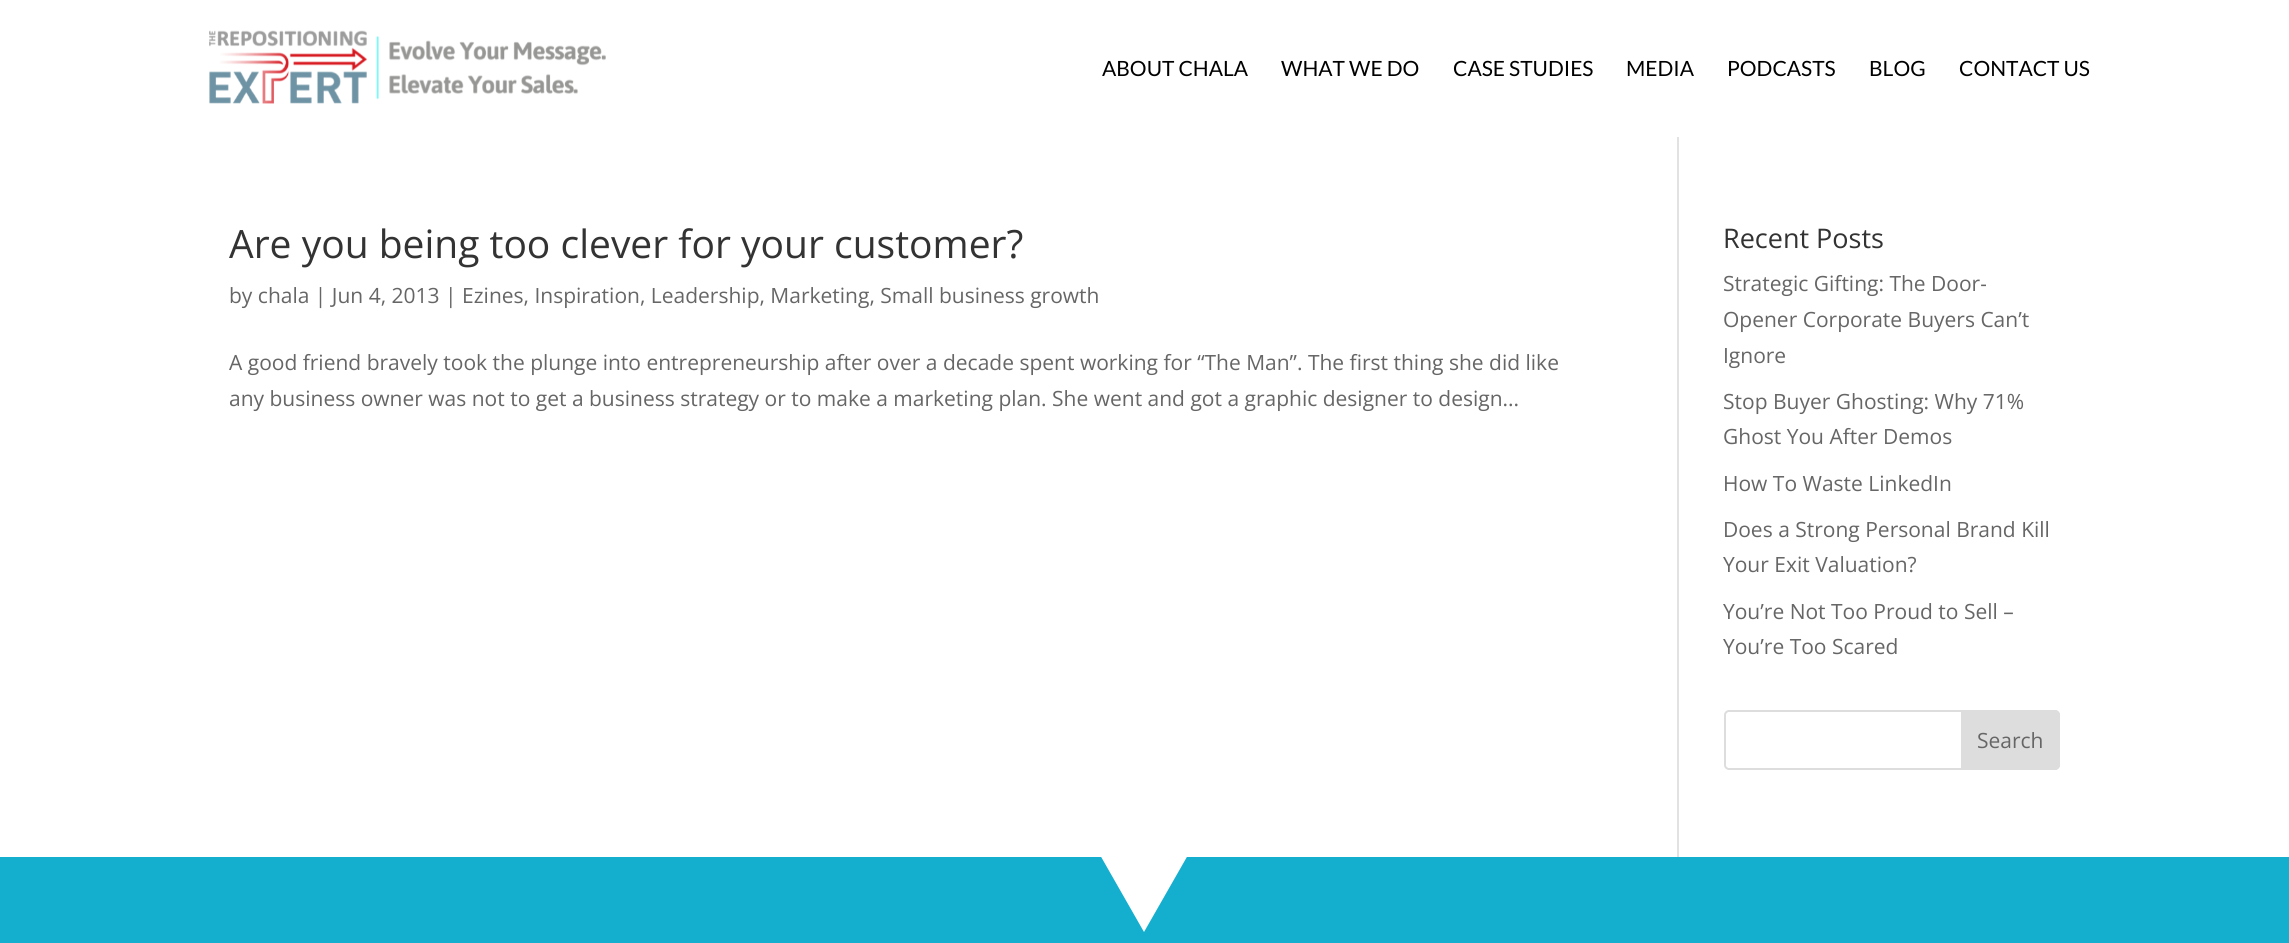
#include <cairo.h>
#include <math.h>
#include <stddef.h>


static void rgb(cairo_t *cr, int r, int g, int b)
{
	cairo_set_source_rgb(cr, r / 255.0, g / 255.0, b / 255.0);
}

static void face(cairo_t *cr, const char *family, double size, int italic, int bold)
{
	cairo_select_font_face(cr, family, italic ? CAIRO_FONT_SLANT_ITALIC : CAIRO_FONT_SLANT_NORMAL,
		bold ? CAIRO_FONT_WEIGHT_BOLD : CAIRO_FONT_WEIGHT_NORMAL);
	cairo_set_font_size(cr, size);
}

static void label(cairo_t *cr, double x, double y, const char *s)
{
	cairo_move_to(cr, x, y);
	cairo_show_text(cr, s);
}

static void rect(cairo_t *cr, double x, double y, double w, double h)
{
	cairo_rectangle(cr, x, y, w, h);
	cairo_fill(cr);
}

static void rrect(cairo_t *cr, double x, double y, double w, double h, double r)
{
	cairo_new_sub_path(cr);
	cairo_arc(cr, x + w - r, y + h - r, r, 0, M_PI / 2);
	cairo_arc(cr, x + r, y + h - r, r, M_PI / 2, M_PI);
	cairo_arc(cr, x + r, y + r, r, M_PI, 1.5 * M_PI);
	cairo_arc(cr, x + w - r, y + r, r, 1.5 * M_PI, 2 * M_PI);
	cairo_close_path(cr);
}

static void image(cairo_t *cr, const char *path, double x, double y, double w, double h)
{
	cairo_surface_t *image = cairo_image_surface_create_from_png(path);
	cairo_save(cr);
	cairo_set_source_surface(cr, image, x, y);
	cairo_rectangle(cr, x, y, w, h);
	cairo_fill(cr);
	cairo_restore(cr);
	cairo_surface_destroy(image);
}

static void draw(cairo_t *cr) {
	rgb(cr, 255, 255, 255);
	cairo_paint(cr);
	image(cr, "image0.png", 209, 30, 397, 74);
	face(cr, "Lato", 21, 0, 0);
	rgb(cr, 0, 0, 0);
	label(cr, 1102, 76, "ABOUT CHALA");
	label(cr, 1281, 76, "WHAT WE DO");
	label(cr, 1453, 76, "CASE STUDIES");
	label(cr, 1626, 76, "MEDIA");
	label(cr, 1727, 76, "PODCASTS");
	label(cr, 1869, 76, "BLOG");
	label(cr, 1959, 76, "CONTACT US");
	rgb(cr, 226, 226, 226);
	rect(cr, 1677, 137, 2, 720);
	face(cr, "Open Sans", 39, 0, 0);
	rgb(cr, 51, 51, 51);
	label(cr, 229, 258, "Are you being too clever for your customer?");
	face(cr, "Open Sans", 21, 0, 0);
	rgb(cr, 102, 102, 102);
	label(cr, 229, 303, "by chala | Jun 4, 2013 | Ezines, Inspiration, Leadership, Marketing, Small business growth");
	label(cr, 229, 370, "A good friend bravely took the plunge into entrepreneurship after over a decade spent working for “The Man”. The first thing she did like");
	label(cr, 229, 406, "any business owner was not to get a business strategy or to make a marketing plan. She went and got a graphic designer to design...");
	face(cr, "Open Sans", 27, 0, 0);
	rgb(cr, 51, 51, 51);
	label(cr, 1723, 248, "Recent Posts");
	face(cr, "Open Sans", 21, 0, 0);
	rgb(cr, 102, 102, 102);
	label(cr, 1723, 291, "Strategic Gifting: The Door-");
	label(cr, 1723, 327, "Opener Corporate Buyers Can’t");
	label(cr, 1723, 363, "Ignore");
	label(cr, 1723, 409, "Stop Buyer Ghosting: Why 71%");
	label(cr, 1723, 444, "Ghost You After Demos");
	label(cr, 1723, 491, "How To Waste LinkedIn");
	label(cr, 1723, 537, "Does a Strong Personal Brand Kill");
	label(cr, 1723, 572, "Your Exit Valuation?");
	label(cr, 1723, 619, "You’re Not Too Proud to Sell –");
	label(cr, 1723, 654, "You’re Too Scared");
	rrect(cr, 1725, 711, 334, 58, 4);
	rgb(cr, 221, 221, 221);
	cairo_stroke(cr);
	cairo_new_path(cr);
	cairo_move_to(cr, 1962, 711);
	cairo_line_to(cr, 2055, 711);
	cairo_curve_to(cr, 2057, 711, 2059, 713, 2059, 715);
	cairo_line_to(cr, 2059, 765);
	cairo_curve_to(cr, 2059, 767, 2057, 769, 2055, 769);
	cairo_line_to(cr, 1962, 769);
	cairo_close_path(cr);
	cairo_fill_preserve(cr);
	cairo_stroke(cr);
	rgb(cr, 102, 102, 102);
	label(cr, 1977, 748, "Search");
	rgb(cr, 20, 174, 207);
	rect(cr, 0, 857, 2289, 86);
	cairo_save(cr);
	cairo_rectangle(cr, 0, 857, 2289, 75);
	cairo_clip(cr);
	rgb(cr, 255, 255, 255);
	cairo_new_path(cr);
	cairo_move_to(cr, 1144, 932);
	cairo_line_to(cr, 0, -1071);
	cairo_line_to(cr, 2289, -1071);
	cairo_close_path(cr);
	cairo_fill(cr);
	cairo_restore(cr);
}

int main(void) {
	cairo_surface_t *surface = cairo_image_surface_create(CAIRO_FORMAT_RGB24, 2289, 943);
	cairo_t *cr = cairo_create(surface);
	cairo_font_options_t *options = cairo_font_options_create();
	cairo_font_options_set_hint_metrics(options, CAIRO_HINT_METRICS_OFF);
	cairo_font_options_set_hint_style(options, CAIRO_HINT_STYLE_NONE);
	cairo_set_font_options(cr, options);
	cairo_set_miter_limit(cr, 4);
	draw(cr);
	cairo_surface_write_to_png(surface, "render.png");
	cairo_font_options_destroy(options);
	cairo_destroy(cr);
	cairo_surface_destroy(surface);
	return 0;
}
